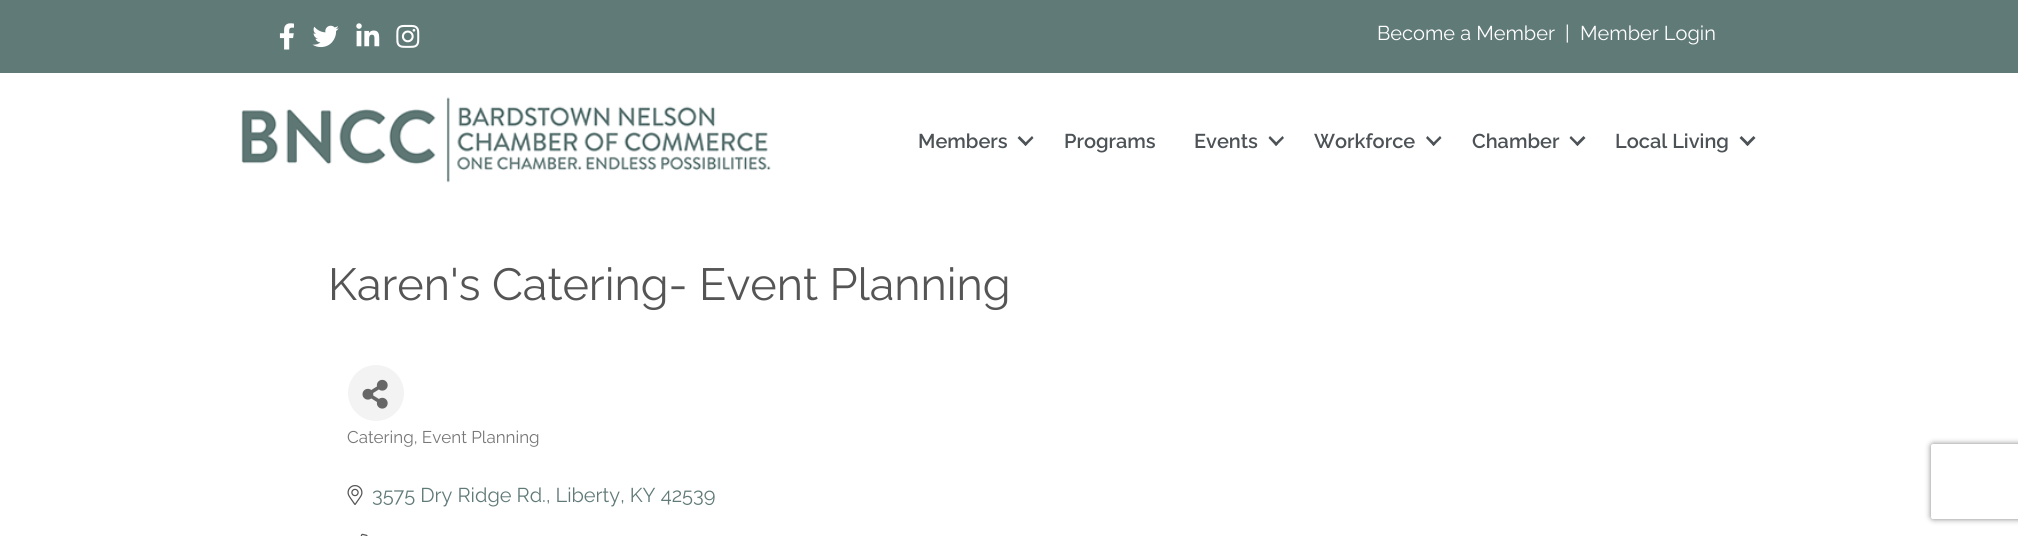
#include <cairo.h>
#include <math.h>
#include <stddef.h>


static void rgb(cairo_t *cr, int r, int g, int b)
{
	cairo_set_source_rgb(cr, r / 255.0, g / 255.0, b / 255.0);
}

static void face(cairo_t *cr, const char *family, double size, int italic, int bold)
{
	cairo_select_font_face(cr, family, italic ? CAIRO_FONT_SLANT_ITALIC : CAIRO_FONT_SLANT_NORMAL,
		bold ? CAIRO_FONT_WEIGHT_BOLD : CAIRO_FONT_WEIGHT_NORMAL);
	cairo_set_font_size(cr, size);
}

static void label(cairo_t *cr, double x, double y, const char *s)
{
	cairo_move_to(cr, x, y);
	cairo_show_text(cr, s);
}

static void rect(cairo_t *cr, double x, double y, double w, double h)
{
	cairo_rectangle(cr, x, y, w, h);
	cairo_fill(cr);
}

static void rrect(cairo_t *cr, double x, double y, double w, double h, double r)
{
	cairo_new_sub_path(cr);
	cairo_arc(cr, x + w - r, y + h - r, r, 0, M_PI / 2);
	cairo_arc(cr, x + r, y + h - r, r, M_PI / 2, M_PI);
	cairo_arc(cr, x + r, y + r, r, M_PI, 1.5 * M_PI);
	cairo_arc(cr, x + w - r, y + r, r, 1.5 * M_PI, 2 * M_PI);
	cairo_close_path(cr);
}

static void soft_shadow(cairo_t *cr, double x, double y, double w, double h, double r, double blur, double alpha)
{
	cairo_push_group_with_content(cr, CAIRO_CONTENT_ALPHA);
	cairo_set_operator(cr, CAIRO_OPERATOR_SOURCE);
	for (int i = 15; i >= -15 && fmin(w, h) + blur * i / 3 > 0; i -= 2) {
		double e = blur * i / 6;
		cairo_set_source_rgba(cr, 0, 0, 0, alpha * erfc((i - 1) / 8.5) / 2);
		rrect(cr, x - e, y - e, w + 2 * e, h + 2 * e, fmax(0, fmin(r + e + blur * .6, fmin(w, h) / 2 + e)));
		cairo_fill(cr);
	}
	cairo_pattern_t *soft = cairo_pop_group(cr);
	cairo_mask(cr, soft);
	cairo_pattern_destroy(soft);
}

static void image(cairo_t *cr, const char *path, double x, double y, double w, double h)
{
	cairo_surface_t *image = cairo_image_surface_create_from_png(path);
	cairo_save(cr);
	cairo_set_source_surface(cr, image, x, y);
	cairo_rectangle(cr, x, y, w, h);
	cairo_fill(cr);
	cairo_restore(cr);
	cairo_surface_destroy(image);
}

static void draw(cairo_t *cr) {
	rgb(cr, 255, 255, 255);
	cairo_paint(cr);
	rgb(cr, 96, 122, 120);
	rect(cr, 0, 0, 2018, 73);
	image(cr, "image0.png", 279, 23, 15, 27);
	image(cr, "image1.png", 312, 25, 27, 23);
	image(cr, "image2.png", 356, 23, 24, 24);
	image(cr, "image3.png", 396, 24, 24, 24);
	face(cr, "Raleway", 20, 0, 0);
	rgb(cr, 255, 255, 255);
	label(cr, 1377, 40, "Become a Member");
	label(cr, 1565, 40, "|");
	label(cr, 1580, 40, "Member Login");
	image(cr, "image4.png", 241, 97, 530, 86);
	face(cr, "Raleway SemiBold", 20, 0, 0);
	rgb(cr, 76, 82, 86);
	label(cr, 918, 148, "Members");
	cairo_new_path(cr);
	cairo_move_to(cr, 1032, 136);
	cairo_line_to(cr, 1033.5, 138);
	cairo_line_to(cr, 1025.5, 146);
	cairo_line_to(cr, 1024, 144);
	cairo_close_path(cr);
	cairo_fill(cr);
	cairo_new_path(cr);
	cairo_move_to(cr, 1019.5, 136);
	cairo_line_to(cr, 1027.5, 144);
	cairo_line_to(cr, 1025.5, 146);
	cairo_line_to(cr, 1017.5, 138);
	cairo_close_path(cr);
	cairo_fill(cr);
	label(cr, 1064, 148, "Programs");
	label(cr, 1194, 148, "Events");
	cairo_new_path(cr);
	cairo_move_to(cr, 1282.5, 136);
	cairo_line_to(cr, 1284, 138);
	cairo_line_to(cr, 1276, 146);
	cairo_line_to(cr, 1274.5, 144);
	cairo_close_path(cr);
	cairo_fill(cr);
	cairo_new_path(cr);
	cairo_move_to(cr, 1270, 136);
	cairo_line_to(cr, 1278, 144);
	cairo_line_to(cr, 1276, 146);
	cairo_line_to(cr, 1268.5, 138);
	cairo_close_path(cr);
	cairo_fill(cr);
	label(cr, 1314, 148, "Workforce");
	cairo_new_path(cr);
	cairo_move_to(cr, 1440, 136);
	cairo_line_to(cr, 1441.5, 138);
	cairo_line_to(cr, 1433.5, 146);
	cairo_line_to(cr, 1432, 144);
	cairo_close_path(cr);
	cairo_fill(cr);
	cairo_new_path(cr);
	cairo_move_to(cr, 1427.5, 136);
	cairo_line_to(cr, 1435.5, 144);
	cairo_line_to(cr, 1433.5, 146);
	cairo_line_to(cr, 1426, 138);
	cairo_close_path(cr);
	cairo_fill(cr);
	label(cr, 1472, 148, "Chamber");
	cairo_new_path(cr);
	cairo_move_to(cr, 1583.5, 136);
	cairo_line_to(cr, 1585.5, 138);
	cairo_line_to(cr, 1577.5, 146);
	cairo_line_to(cr, 1575.5, 144);
	cairo_close_path(cr);
	cairo_fill(cr);
	cairo_new_path(cr);
	cairo_move_to(cr, 1571, 136);
	cairo_line_to(cr, 1579, 144);
	cairo_line_to(cr, 1577.5, 146);
	cairo_line_to(cr, 1569.5, 138);
	cairo_close_path(cr);
	cairo_fill(cr);
	label(cr, 1615, 148, "Local Living");
	cairo_new_path(cr);
	cairo_move_to(cr, 1753.5, 136);
	cairo_line_to(cr, 1755.5, 138);
	cairo_line_to(cr, 1747.5, 146);
	cairo_line_to(cr, 1745.5, 144);
	cairo_close_path(cr);
	cairo_fill(cr);
	cairo_new_path(cr);
	cairo_move_to(cr, 1741.5, 136);
	cairo_line_to(cr, 1749.5, 144);
	cairo_line_to(cr, 1747.5, 146);
	cairo_line_to(cr, 1739.5, 138);
	cairo_close_path(cr);
	cairo_fill(cr);
	face(cr, "Raleway", 45, 0, 0);
	rgb(cr, 85, 85, 85);
	label(cr, 328, 300, "Karen's Catering- Event Planning");
	rgb(cr, 243, 243, 243);
	cairo_new_path(cr);
	cairo_arc(cr, 376, 393, 28, 0, 2 * M_PI);
	cairo_fill(cr);
	image(cr, "image5.png", 362, 379, 26, 30);
	face(cr, "Raleway", 17, 0, 0);
	rgb(cr, 119, 119, 119);
	label(cr, 347, 443, "Catering, Event Planning");
	image(cr, "image6.png", 347, 485, 16, 20);
	face(cr, "Raleway", 20, 0, 0);
	rgb(cr, 96, 122, 120);
	label(cr, 372, 502, "3575 Dry Ridge Rd., Liberty, KY 42539");
	image(cr, "image7.png", 360, 533, 8, 3);
	cairo_save(cr);
	cairo_set_fill_rule(cr, CAIRO_FILL_RULE_EVEN_ODD);
	cairo_new_path(cr);
	cairo_move_to(cr, 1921, 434);
	cairo_line_to(cr, 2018, 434);
	cairo_line_to(cr, 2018, 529);
	cairo_line_to(cr, 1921, 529);
	cairo_close_path(cr);
	cairo_move_to(cr, 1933.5, 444);
	cairo_line_to(cr, 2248.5, 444);
	cairo_curve_to(cr, 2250, 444, 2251, 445, 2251, 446.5);
	cairo_line_to(cr, 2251, 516.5);
	cairo_curve_to(cr, 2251, 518, 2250, 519, 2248.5, 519);
	cairo_line_to(cr, 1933.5, 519);
	cairo_curve_to(cr, 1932, 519, 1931, 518, 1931, 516.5);
	cairo_line_to(cr, 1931, 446.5);
	cairo_curve_to(cr, 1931, 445, 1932, 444, 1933.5, 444);
	cairo_close_path(cr);
	cairo_clip(cr);
	rgb(cr, 128, 128, 128);
	soft_shadow(cr, 1931, 444, 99, 75, 2.5, 3, 1);
	cairo_restore(cr);
}

int main(void) {
	cairo_surface_t *surface = cairo_image_surface_create(CAIRO_FORMAT_RGB24, 2018, 536);
	cairo_t *cr = cairo_create(surface);
	cairo_font_options_t *options = cairo_font_options_create();
	cairo_font_options_set_hint_metrics(options, CAIRO_HINT_METRICS_OFF);
	cairo_font_options_set_hint_style(options, CAIRO_HINT_STYLE_NONE);
	cairo_set_font_options(cr, options);
	cairo_set_miter_limit(cr, 4);
	draw(cr);
	cairo_surface_write_to_png(surface, "render.png");
	cairo_font_options_destroy(options);
	cairo_destroy(cr);
	cairo_surface_destroy(surface);
	return 0;
}
